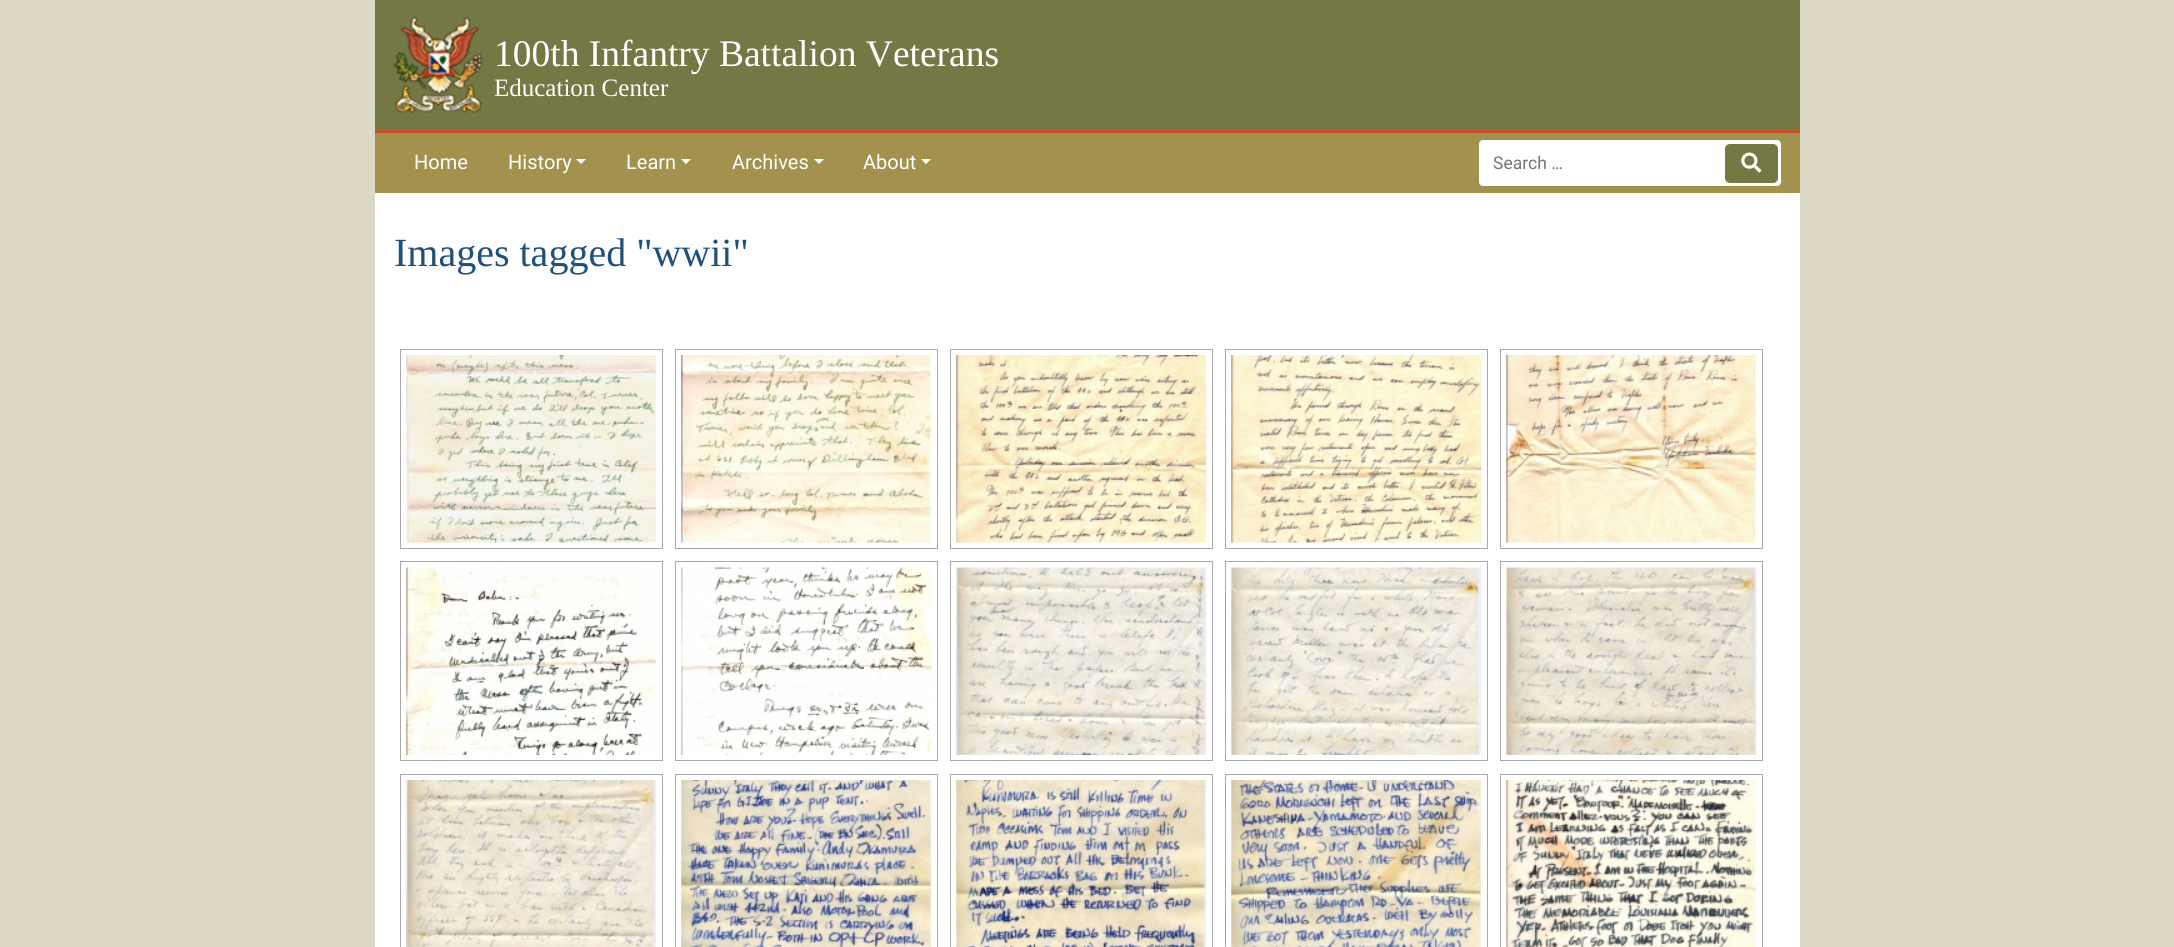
#include <cairo.h>
#include <math.h>
#include <stddef.h>


static void rgb(cairo_t *cr, int r, int g, int b)
{
	cairo_set_source_rgb(cr, r / 255.0, g / 255.0, b / 255.0);
}

static void face(cairo_t *cr, const char *family, double size, int italic, int bold)
{
	cairo_select_font_face(cr, family, italic ? CAIRO_FONT_SLANT_ITALIC : CAIRO_FONT_SLANT_NORMAL,
		bold ? CAIRO_FONT_WEIGHT_BOLD : CAIRO_FONT_WEIGHT_NORMAL);
	cairo_set_font_size(cr, size);
}

static void label(cairo_t *cr, double x, double y, const char *s)
{
	cairo_move_to(cr, x, y);
	cairo_show_text(cr, s);
}

static void rect(cairo_t *cr, double x, double y, double w, double h)
{
	cairo_rectangle(cr, x, y, w, h);
	cairo_fill(cr);
}

static void rrect(cairo_t *cr, double x, double y, double w, double h, double r)
{
	cairo_new_sub_path(cr);
	cairo_arc(cr, x + w - r, y + h - r, r, 0, M_PI / 2);
	cairo_arc(cr, x + r, y + h - r, r, M_PI / 2, M_PI);
	cairo_arc(cr, x + r, y + r, r, M_PI, 1.5 * M_PI);
	cairo_arc(cr, x + w - r, y + r, r, 1.5 * M_PI, 2 * M_PI);
	cairo_close_path(cr);
}

static void image(cairo_t *cr, const char *path, double x, double y, double w, double h)
{
	cairo_surface_t *image = cairo_image_surface_create_from_png(path);
	cairo_save(cr);
	cairo_set_source_surface(cr, image, x, y);
	cairo_rectangle(cr, x, y, w, h);
	cairo_fill(cr);
	cairo_restore(cr);
	cairo_surface_destroy(image);
}

static void draw(cairo_t *cr) {
	rgb(cr, 220, 216, 195);
	cairo_paint(cr);
	rgb(cr, 116, 120, 69);
	rect(cr, 375, 0, 1425, 130);
	rgb(cr, 194, 78, 42);
	rect(cr, 375, 130, 1425, 3);
	image(cr, "image0.png", 393, 16, 90, 98);
	face(cr, "Liberation Serif", 37.5, 0, 0);
	rgb(cr, 255, 255, 255);
	label(cr, 494, 66, "100th Infantry Battalion Veterans");
	face(cr, "Liberation Serif", 25, 0, 0);
	label(cr, 494, 96, "Education Center");
	rgb(cr, 162, 146, 78);
	rect(cr, 375, 133, 1425, 60);
	face(cr, "Roboto", 20, 0, 0);
	rgb(cr, 255, 255, 255);
	label(cr, 414, 169, "Home");
	label(cr, 508, 169, "History");
	cairo_new_path(cr);
	cairo_move_to(cr, 576, 159);
	cairo_line_to(cr, 586, 159);
	cairo_line_to(cr, 581, 164);
	cairo_close_path(cr);
	cairo_fill(cr);
	label(cr, 626, 169, "Learn");
	cairo_new_path(cr);
	cairo_move_to(cr, 681, 159);
	cairo_line_to(cr, 691, 159);
	cairo_line_to(cr, 686, 164);
	cairo_close_path(cr);
	cairo_fill(cr);
	label(cr, 732, 169, "Archives");
	cairo_new_path(cr);
	cairo_move_to(cr, 814, 159);
	cairo_line_to(cr, 824, 159);
	cairo_line_to(cr, 819, 164);
	cairo_close_path(cr);
	cairo_fill(cr);
	label(cr, 863, 169, "About");
	cairo_new_path(cr);
	cairo_move_to(cr, 921, 159);
	cairo_line_to(cr, 931, 159);
	cairo_line_to(cr, 926, 164);
	cairo_close_path(cr);
	cairo_fill(cr);
	rrect(cr, 1481, 142, 298, 42, 2);
	cairo_fill_preserve(cr);
	cairo_set_line_width(cr, 4);
	cairo_stroke(cr);
	face(cr, "Roboto", 17.5, 0, 0);
	rgb(cr, 117, 117, 117);
	label(cr, 1493, 169, "Search …");
	rgb(cr, 116, 120, 69);
	rrect(cr, 1725, 144, 53, 39, 5);
	cairo_fill(cr);
	image(cr, "image1.png", 1741, 152, 21, 21);
	rgb(cr, 255, 255, 255);
	rect(cr, 375, 193, 1425, 754);
	face(cr, "Liberation Serif", 40, 0, 0);
	rgb(cr, 31, 80, 124);
	label(cr, 394, 266, "Images tagged \"wwii\"");
	cairo_rectangle(cr, 400.5, 349.5, 262, 199);
	rgb(cr, 169, 169, 169);
	cairo_set_line_width(cr, 1);
	cairo_stroke(cr);
	image(cr, "image2.png", 406, 355, 251, 188);
	cairo_rectangle(cr, 675.5, 349.5, 262, 199);
	cairo_stroke(cr);
	image(cr, "image3.png", 681, 355, 251, 188);
	cairo_rectangle(cr, 950.5, 349.5, 262, 199);
	cairo_stroke(cr);
	image(cr, "image4.png", 956, 355, 251, 188);
	cairo_rectangle(cr, 1225.5, 349.5, 262, 199);
	cairo_stroke(cr);
	image(cr, "image5.png", 1231, 355, 251, 188);
	cairo_rectangle(cr, 1500.5, 349.5, 262, 199);
	cairo_stroke(cr);
	image(cr, "image6.png", 1506, 355, 251, 188);
	cairo_rectangle(cr, 400.5, 561.5, 262, 199);
	cairo_stroke(cr);
	image(cr, "image7.png", 406, 567, 251, 188);
	cairo_rectangle(cr, 675.5, 561.5, 262, 199);
	cairo_stroke(cr);
	image(cr, "image8.png", 681, 567, 251, 188);
	cairo_rectangle(cr, 950.5, 561.5, 262, 199);
	cairo_stroke(cr);
	image(cr, "image9.png", 956, 567, 251, 188);
	cairo_rectangle(cr, 1225.5, 561.5, 262, 199);
	cairo_stroke(cr);
	image(cr, "image10.png", 1231, 567, 251, 188);
	cairo_rectangle(cr, 1500.5, 561.5, 262, 199);
	cairo_stroke(cr);
	image(cr, "image11.png", 1506, 567, 251, 188);
	cairo_rectangle(cr, 400.5, 774.5, 262, 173);
	cairo_stroke(cr);
	image(cr, "image12.png", 406, 780, 251, 167);
	cairo_rectangle(cr, 675.5, 774.5, 262, 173);
	cairo_stroke(cr);
	image(cr, "image13.png", 681, 780, 251, 167);
	cairo_rectangle(cr, 950.5, 774.5, 262, 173);
	cairo_stroke(cr);
	image(cr, "image14.png", 956, 780, 251, 167);
	cairo_rectangle(cr, 1225.5, 774.5, 262, 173);
	cairo_stroke(cr);
	image(cr, "image15.png", 1231, 780, 251, 167);
	cairo_rectangle(cr, 1500.5, 774.5, 262, 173);
	cairo_stroke(cr);
	image(cr, "image16.png", 1506, 780, 251, 167);
}

int main(void) {
	cairo_surface_t *surface = cairo_image_surface_create(CAIRO_FORMAT_RGB24, 2174, 947);
	cairo_t *cr = cairo_create(surface);
	cairo_font_options_t *options = cairo_font_options_create();
	cairo_font_options_set_hint_metrics(options, CAIRO_HINT_METRICS_OFF);
	cairo_font_options_set_hint_style(options, CAIRO_HINT_STYLE_NONE);
	cairo_set_font_options(cr, options);
	cairo_set_miter_limit(cr, 4);
	draw(cr);
	cairo_surface_write_to_png(surface, "render.png");
	cairo_font_options_destroy(options);
	cairo_destroy(cr);
	cairo_surface_destroy(surface);
	return 0;
}
